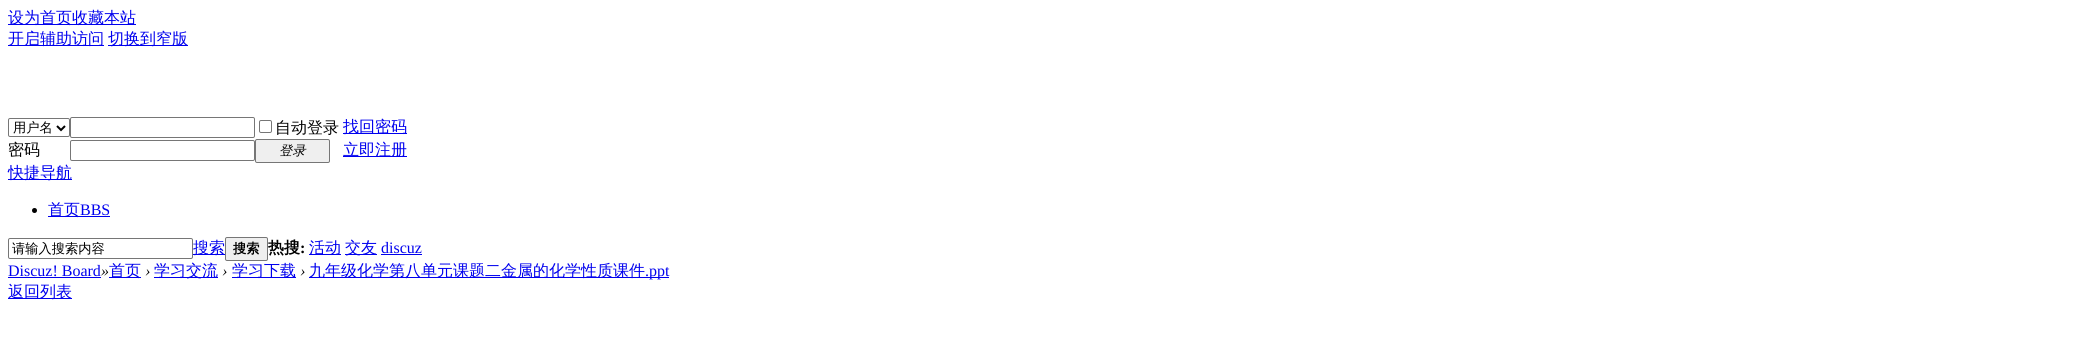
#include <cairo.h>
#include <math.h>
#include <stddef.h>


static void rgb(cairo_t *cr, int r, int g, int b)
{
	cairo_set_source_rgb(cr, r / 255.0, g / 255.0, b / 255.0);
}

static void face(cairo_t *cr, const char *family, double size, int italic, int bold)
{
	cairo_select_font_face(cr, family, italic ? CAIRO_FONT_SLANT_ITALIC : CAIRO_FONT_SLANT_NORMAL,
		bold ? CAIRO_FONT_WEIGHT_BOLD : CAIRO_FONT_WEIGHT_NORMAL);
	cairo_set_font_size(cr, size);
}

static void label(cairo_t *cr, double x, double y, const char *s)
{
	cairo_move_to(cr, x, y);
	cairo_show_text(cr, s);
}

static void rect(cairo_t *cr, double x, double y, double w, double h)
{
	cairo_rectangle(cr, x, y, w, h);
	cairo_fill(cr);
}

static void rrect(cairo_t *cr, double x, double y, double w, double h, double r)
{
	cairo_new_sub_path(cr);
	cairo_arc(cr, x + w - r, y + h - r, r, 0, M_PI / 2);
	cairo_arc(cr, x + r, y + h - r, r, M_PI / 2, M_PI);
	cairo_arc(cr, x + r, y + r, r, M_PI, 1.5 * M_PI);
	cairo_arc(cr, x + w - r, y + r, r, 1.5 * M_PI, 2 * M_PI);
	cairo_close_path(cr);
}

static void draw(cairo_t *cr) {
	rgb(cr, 255, 255, 255);
	cairo_paint(cr);
	rgb(cr, 0, 0, 238);
	rect(cr, 8, 24, 128, 1);
	face(cr, "WenQuanYi Zen Hei Medium", 16, 0, 0);
	label(cr, 8, 23, "设为首页收藏本站");
	rect(cr, 8, 45, 96, 1);
	label(cr, 8, 44, "开启辅助访问");
	rect(cr, 108, 45, 80, 1);
	label(cr, 108, 44, "切换到窄版");
	rrect(cr, 8.5, 118.5, 61, 18, 1.5);
	rgb(cr, 118, 118, 118);
	cairo_set_line_width(cr, 1);
	cairo_stroke(cr);
	cairo_new_path(cr);
	cairo_move_to(cr, 57, 126);
	cairo_line_to(cr, 61, 130);
	cairo_line_to(cr, 65, 126);
	rgb(cr, 0, 0, 0);
	cairo_set_line_width(cr, 2);
	cairo_stroke(cr);
	face(cr, "WenQuanYi Zen Hei Medium", 13.25, 0, 0);
	label(cr, 13, 132, "用户名");
	rrect(cr, 70.5, 117.5, 184, 20, 1.5);
	rgb(cr, 118, 118, 118);
	cairo_set_line_width(cr, 1);
	cairo_stroke(cr);
	rrect(cr, 259.5, 120.5, 12, 12, 1.5);
	cairo_stroke(cr);
	face(cr, "WenQuanYi Zen Hei Medium", 16, 0, 0);
	rgb(cr, 0, 0, 0);
	label(cr, 275, 133, "自动登录");
	rgb(cr, 0, 0, 238);
	rect(cr, 343, 133, 64, 1);
	label(cr, 343, 132, "找回密码");
	rgb(cr, 0, 0, 0);
	label(cr, 8, 155, "密码");
	rrect(cr, 70.5, 140.5, 184, 20, 1.5);
	rgb(cr, 118, 118, 118);
	cairo_stroke(cr);
	rgb(cr, 239, 239, 239);
	rrect(cr, 255.5, 139.5, 74, 23, 1.5);
	cairo_fill_preserve(cr);
	rgb(cr, 118, 118, 118);
	cairo_stroke(cr);
	face(cr, "WenQuanYi Zen Hei Medium", 13.25, 1, 0);
	rgb(cr, 0, 0, 0);
	label(cr, 279, 155, "登录");
	rgb(cr, 0, 0, 238);
	rect(cr, 343, 156, 64, 1);
	face(cr, "WenQuanYi Zen Hei Medium", 16, 0, 0);
	label(cr, 343, 155, "立即注册");
	rect(cr, 8, 179, 64, 1);
	label(cr, 8, 178, "快捷导航");
	rgb(cr, 0, 0, 0);
	cairo_new_path(cr);
	cairo_arc(cr, 34.5, 210.5, 2.5, 0, 2 * M_PI);
	cairo_fill(cr);
	rgb(cr, 0, 0, 238);
	rect(cr, 48, 216, 62, 1);
	label(cr, 48, 215, "首页");
	face(cr, "Liberation Serif", 16, 0, 0);
	label(cr, 80, 215, "BBS");
	rrect(cr, 8.5, 238.5, 184, 20, 1.5);
	rgb(cr, 118, 118, 118);
	cairo_stroke(cr);
	face(cr, "WenQuanYi Zen Hei Medium", 13.25, 0, 0);
	rgb(cr, 0, 0, 0);
	label(cr, 12, 253, "请输入搜索内容");
	rgb(cr, 0, 0, 238);
	rect(cr, 193, 254, 32, 1);
	face(cr, "WenQuanYi Zen Hei Medium", 16, 0, 0);
	label(cr, 193, 253, "搜索");
	rgb(cr, 239, 239, 239);
	rrect(cr, 225.5, 237.5, 42, 23, 1.5);
	cairo_fill_preserve(cr);
	rgb(cr, 118, 118, 118);
	cairo_stroke(cr);
	face(cr, "WenQuanYi Zen Hei", 13.25, 0, 1);
	rgb(cr, 0, 0, 0);
	label(cr, 233, 253, "搜索");
	face(cr, "WenQuanYi Zen Hei", 16, 0, 1);
	label(cr, 268, 253, "热搜");
	face(cr, "Liberation Serif", 16, 0, 1);
	label(cr, 300, 253, ":");
	rgb(cr, 0, 0, 238);
	rect(cr, 309, 254, 32, 1);
	face(cr, "WenQuanYi Zen Hei Medium", 16, 0, 0);
	label(cr, 309, 253, "活动");
	rect(cr, 345, 254, 32, 1);
	label(cr, 345, 253, "交友");
	face(cr, "Liberation Serif", 16, 0, 0);
	label(cr, 381, 253, "discuz");
	rect(cr, 381, 254, 41, 1);
	label(cr, 8, 276, "Discuz! Board");
	rect(cr, 8, 277, 93, 1);
	face(cr, "Liberation Serif", 16, 1, 0);
	rgb(cr, 0, 0, 0);
	label(cr, 101, 276, "»");
	rgb(cr, 0, 0, 238);
	rect(cr, 109, 277, 32, 1);
	face(cr, "WenQuanYi Zen Hei Medium", 16, 0, 0);
	label(cr, 109, 276, "首页");
	face(cr, "Liberation Serif", 16, 1, 0);
	rgb(cr, 0, 0, 0);
	label(cr, 145, 276, "›");
	rgb(cr, 0, 0, 238);
	rect(cr, 154, 277, 64, 1);
	face(cr, "WenQuanYi Zen Hei Medium", 16, 0, 0);
	label(cr, 154, 276, "学习交流");
	face(cr, "Liberation Serif", 16, 1, 0);
	rgb(cr, 0, 0, 0);
	label(cr, 222, 276, "›");
	rgb(cr, 0, 0, 238);
	rect(cr, 232, 277, 64, 1);
	face(cr, "WenQuanYi Zen Hei Medium", 16, 0, 0);
	label(cr, 232, 276, "学习下载");
	face(cr, "Liberation Serif", 16, 1, 0);
	rgb(cr, 0, 0, 0);
	label(cr, 300, 276, "›");
	rgb(cr, 0, 0, 238);
	rect(cr, 309, 277, 360, 1);
	face(cr, "WenQuanYi Zen Hei Medium", 16, 0, 0);
	label(cr, 309, 276, "九年级化学第八单元课题二金属的化学性质课件");
	face(cr, "Liberation Serif", 16, 0, 0);
	label(cr, 645, 276, ".ppt");
	rect(cr, 8, 298, 64, 1);
	face(cr, "WenQuanYi Zen Hei Medium", 16, 0, 0);
	label(cr, 8, 297, "返回列表");
}

int main(void) {
	cairo_surface_t *surface = cairo_image_surface_create(CAIRO_FORMAT_RGB24, 2093, 345);
	cairo_t *cr = cairo_create(surface);
	cairo_font_options_t *options = cairo_font_options_create();
	cairo_font_options_set_hint_metrics(options, CAIRO_HINT_METRICS_OFF);
	cairo_font_options_set_hint_style(options, CAIRO_HINT_STYLE_NONE);
	cairo_set_font_options(cr, options);
	cairo_set_miter_limit(cr, 4);
	draw(cr);
	cairo_surface_write_to_png(surface, "render.png");
	cairo_font_options_destroy(options);
	cairo_destroy(cr);
	cairo_surface_destroy(surface);
	return 0;
}
